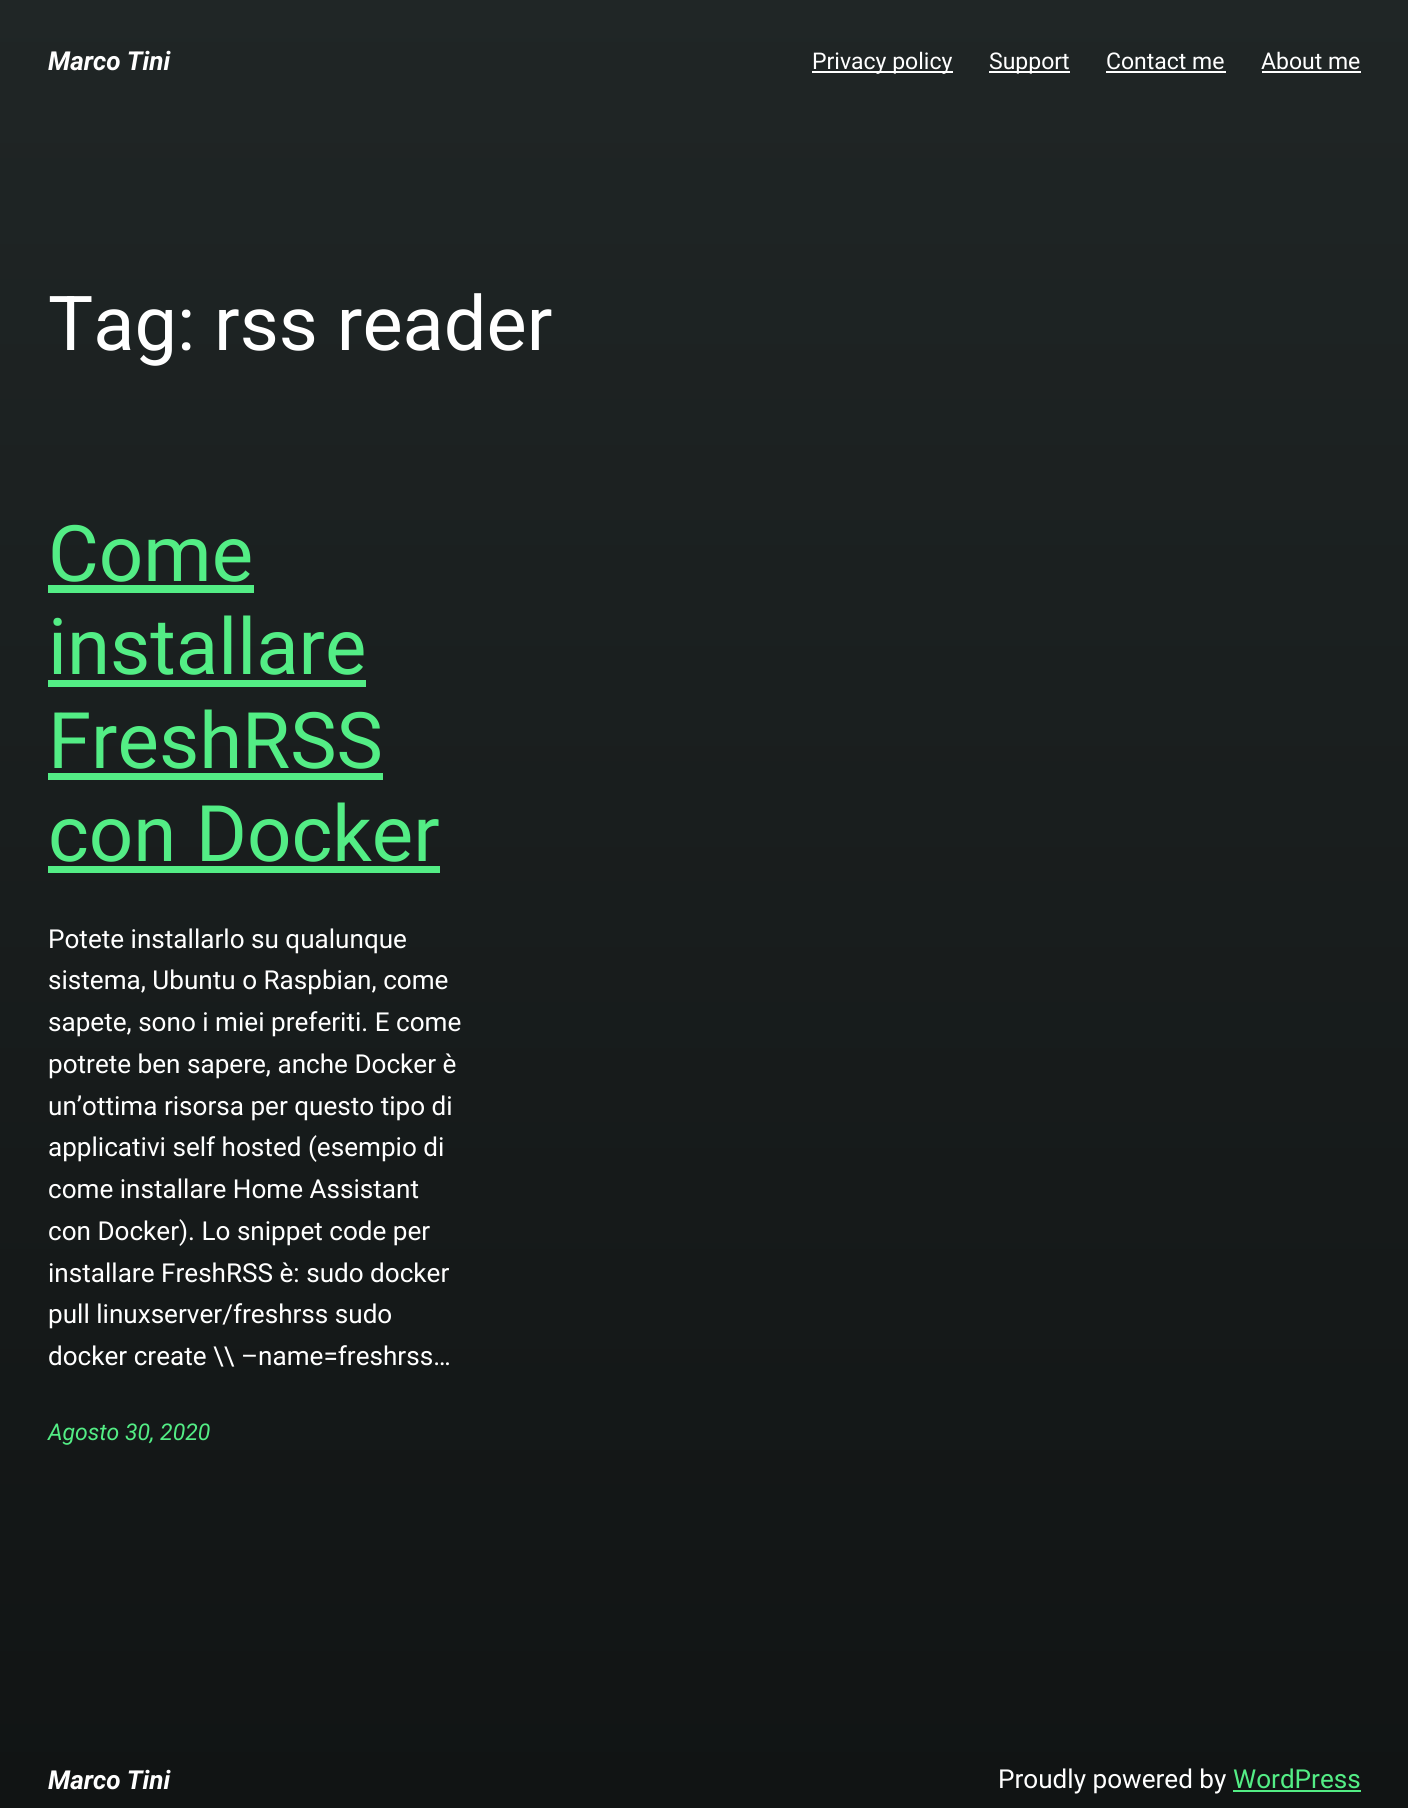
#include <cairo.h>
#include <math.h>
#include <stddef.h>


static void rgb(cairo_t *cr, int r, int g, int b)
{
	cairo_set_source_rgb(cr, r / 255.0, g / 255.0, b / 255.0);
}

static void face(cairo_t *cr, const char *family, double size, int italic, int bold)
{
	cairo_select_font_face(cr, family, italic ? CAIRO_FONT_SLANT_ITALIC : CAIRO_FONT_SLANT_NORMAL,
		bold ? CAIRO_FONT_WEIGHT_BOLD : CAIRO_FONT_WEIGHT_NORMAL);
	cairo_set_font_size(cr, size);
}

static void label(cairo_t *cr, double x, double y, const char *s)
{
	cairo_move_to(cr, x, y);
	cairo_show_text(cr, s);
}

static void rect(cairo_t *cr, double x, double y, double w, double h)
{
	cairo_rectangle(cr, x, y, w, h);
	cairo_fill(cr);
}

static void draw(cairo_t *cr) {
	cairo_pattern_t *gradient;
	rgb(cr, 255, 255, 255);
	cairo_paint(cr);
	gradient = cairo_pattern_create_linear(704, -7.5, 704, 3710);
	cairo_pattern_add_color_stop_rgba(gradient, 0, 0.125, 0.149, 0.149, 1);
	cairo_pattern_add_color_stop_rgba(gradient, 1, 0.004, 0.004, 0.004, 1);
	cairo_set_source(cr, gradient);
	cairo_pattern_destroy(gradient);
	rect(cr, 0, 0, 1408, 1808);
	face(cr, "Roboto", 26.1, 1, 1);
	rgb(cr, 255, 255, 255);
	label(cr, 48, 70, "Marco Tini");
	rect(cr, 812, 71, 141, 2);
	face(cr, "Roboto", 23, 0, 0);
	label(cr, 812, 69, "Privacy policy");
	rect(cr, 989, 71, 81, 2);
	label(cr, 989, 69, "Support");
	label(cr, 1106, 69, "Contact me");
	rect(cr, 1106, 71, 120, 2);
	label(cr, 1261, 69, "About me");
	rect(cr, 1262, 71, 99, 2);
	face(cr, "Roboto", 75.75, 0, 0);
	label(cr, 48, 350, "Tag: rss reader");
	face(cr, "Roboto", 78, 0, 0);
	rgb(cr, 83, 237, 133);
	label(cr, 48, 581, "Come");
	rect(cr, 48, 585, 206, 8);
	label(cr, 48, 674, "installare");
	rect(cr, 48, 680, 318, 7);
	label(cr, 48, 768, "FreshRSS");
	rect(cr, 48, 773, 335, 7);
	label(cr, 48, 861, "con Docker");
	rect(cr, 48, 866, 392, 7);
	face(cr, "Roboto", 26.1, 0, 0);
	rgb(cr, 255, 255, 255);
	label(cr, 48, 948, "Potete installarlo su qualunque");
	label(cr, 48, 989, "sistema, Ubuntu o Raspbian, come");
	label(cr, 48, 1031, "sapete, sono i miei preferiti. E come");
	label(cr, 48, 1073, "potrete ben sapere, anche Docker è");
	label(cr, 48, 1115, "un’ottima risorsa per questo tipo di");
	label(cr, 48, 1156, "applicativi self hosted (esempio di");
	label(cr, 48, 1198, "come installare Home Assistant");
	label(cr, 48, 1240, "con Docker). Lo snippet code per");
	label(cr, 48, 1282, "installare FreshRSS è: sudo docker");
	label(cr, 48, 1323, "pull linuxserver/freshrss sudo");
	label(cr, 48, 1365, "docker create \\\\ –name=freshrss…");
	face(cr, "Roboto", 23, 1, 0);
	rgb(cr, 83, 237, 133);
	label(cr, 48, 1440, "Agosto 30, 2020");
	face(cr, "Roboto", 26.1, 1, 1);
	rgb(cr, 255, 255, 255);
	label(cr, 48, 1789, "Marco Tini");
	face(cr, "Roboto", 26.1, 0, 0);
	label(cr, 998, 1788, "Proudly powered by");
	rgb(cr, 83, 237, 133);
	label(cr, 1233, 1788, "WordPress");
	rect(cr, 1233, 1790, 128, 2);
}

int main(void) {
	cairo_surface_t *surface = cairo_image_surface_create(CAIRO_FORMAT_RGB24, 1408, 1808);
	cairo_t *cr = cairo_create(surface);
	cairo_font_options_t *options = cairo_font_options_create();
	cairo_font_options_set_hint_metrics(options, CAIRO_HINT_METRICS_OFF);
	cairo_font_options_set_hint_style(options, CAIRO_HINT_STYLE_NONE);
	cairo_set_font_options(cr, options);
	cairo_set_miter_limit(cr, 4);
	draw(cr);
	cairo_surface_write_to_png(surface, "render.png");
	cairo_font_options_destroy(options);
	cairo_destroy(cr);
	cairo_surface_destroy(surface);
	return 0;
}
